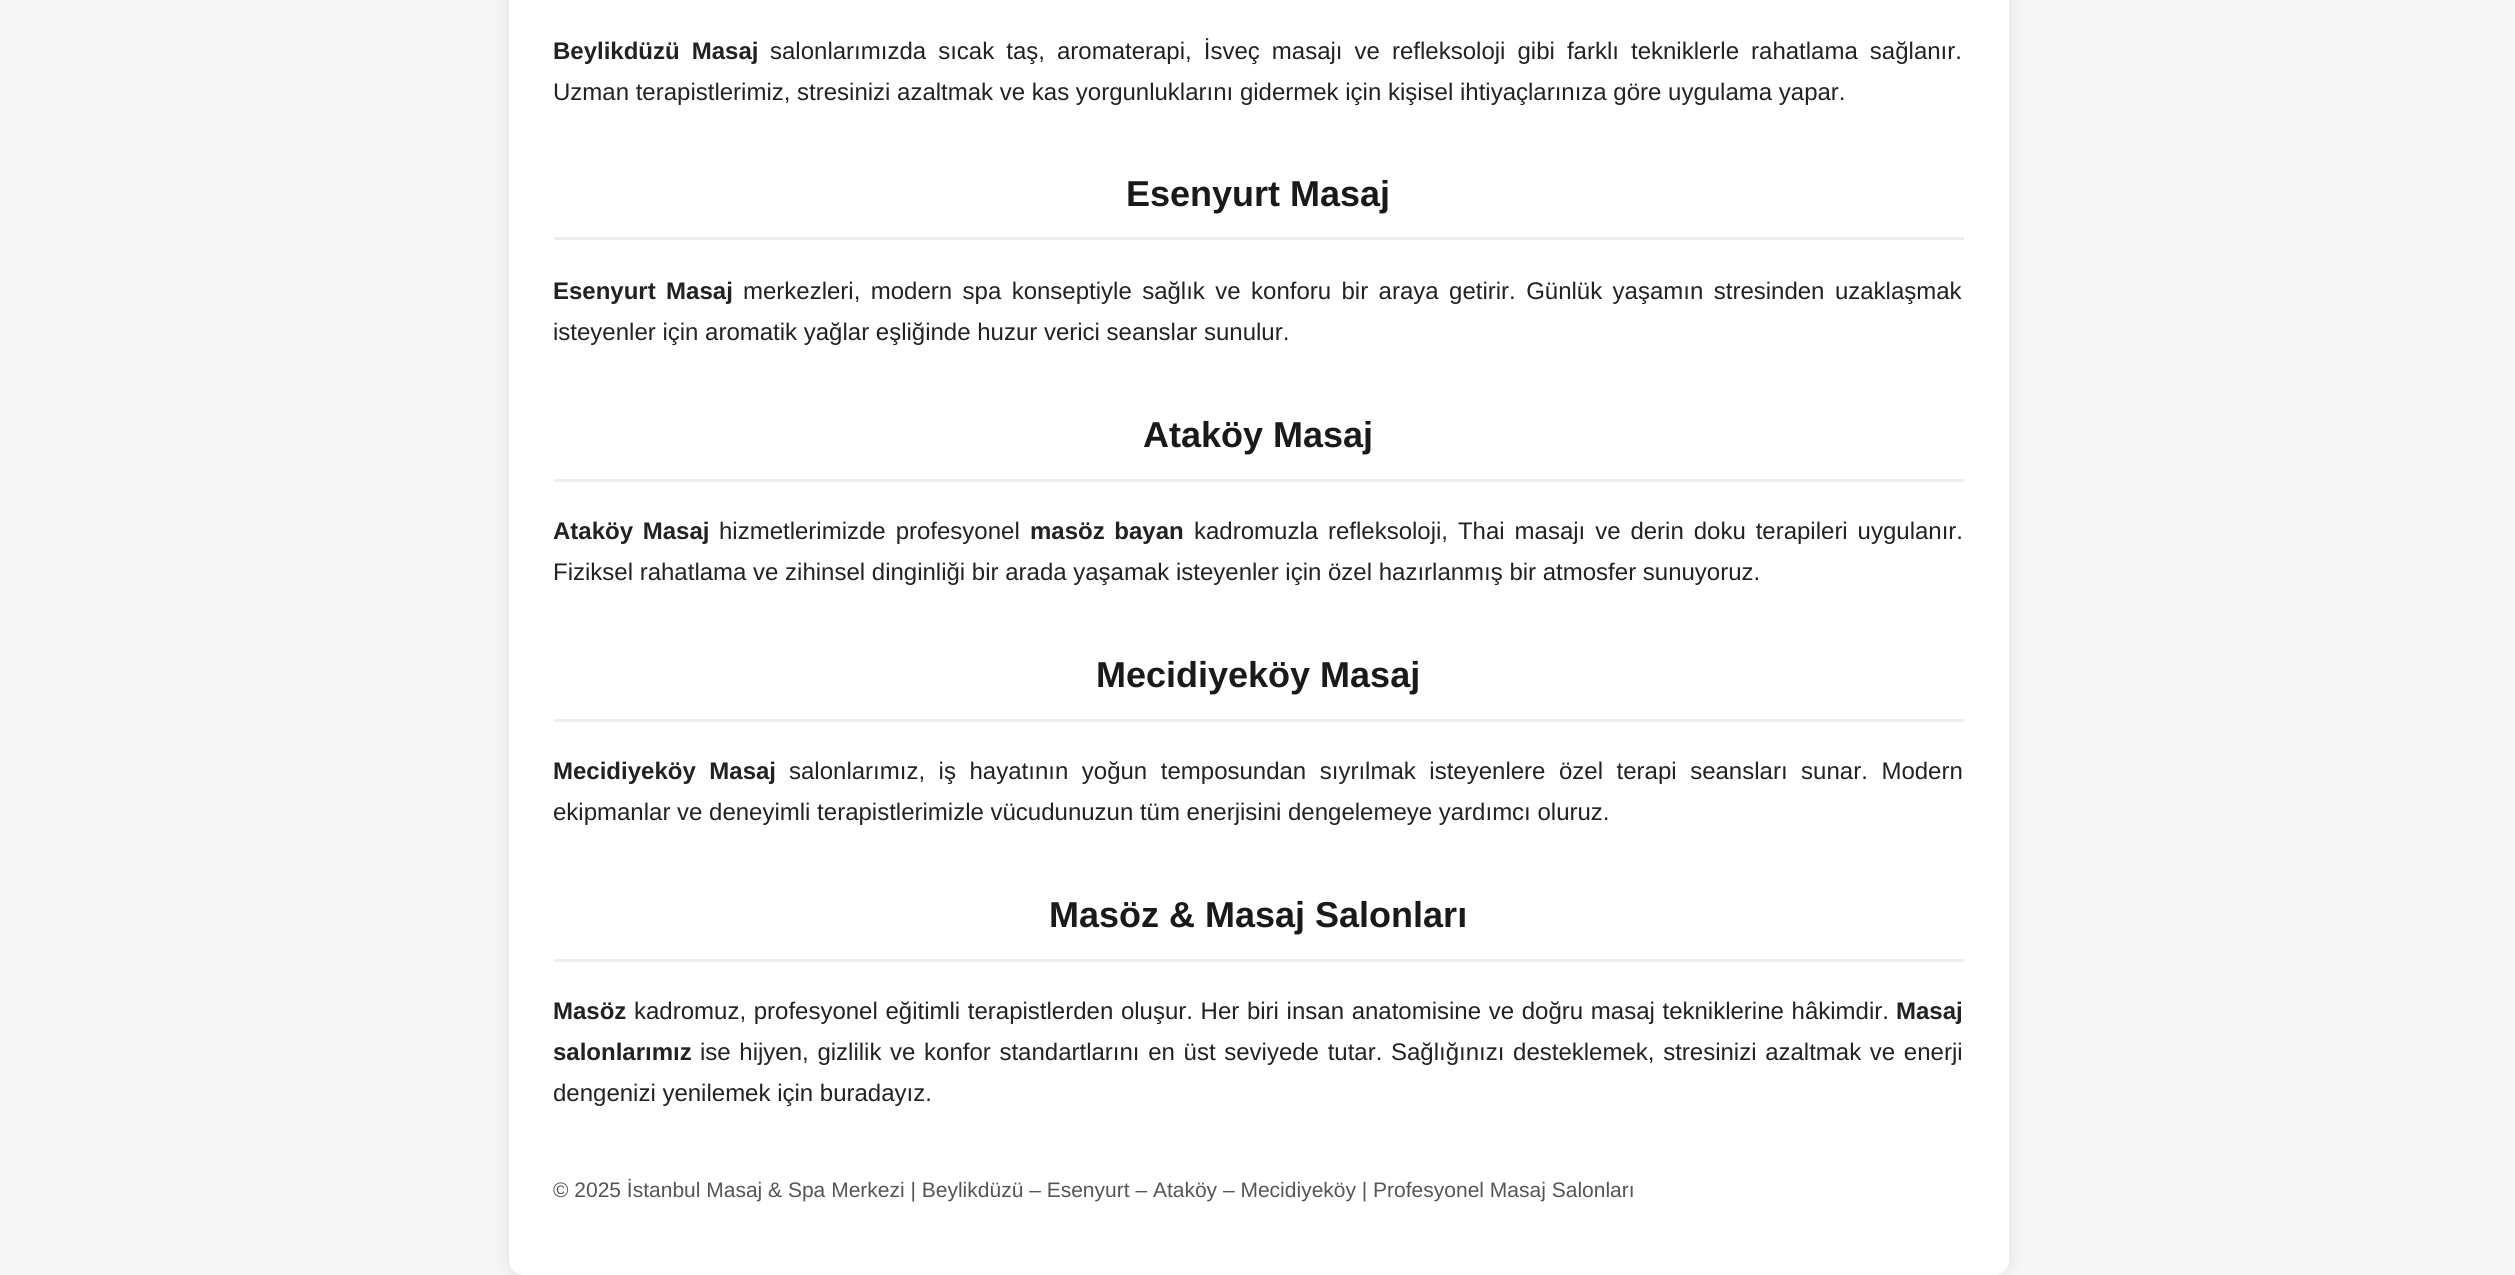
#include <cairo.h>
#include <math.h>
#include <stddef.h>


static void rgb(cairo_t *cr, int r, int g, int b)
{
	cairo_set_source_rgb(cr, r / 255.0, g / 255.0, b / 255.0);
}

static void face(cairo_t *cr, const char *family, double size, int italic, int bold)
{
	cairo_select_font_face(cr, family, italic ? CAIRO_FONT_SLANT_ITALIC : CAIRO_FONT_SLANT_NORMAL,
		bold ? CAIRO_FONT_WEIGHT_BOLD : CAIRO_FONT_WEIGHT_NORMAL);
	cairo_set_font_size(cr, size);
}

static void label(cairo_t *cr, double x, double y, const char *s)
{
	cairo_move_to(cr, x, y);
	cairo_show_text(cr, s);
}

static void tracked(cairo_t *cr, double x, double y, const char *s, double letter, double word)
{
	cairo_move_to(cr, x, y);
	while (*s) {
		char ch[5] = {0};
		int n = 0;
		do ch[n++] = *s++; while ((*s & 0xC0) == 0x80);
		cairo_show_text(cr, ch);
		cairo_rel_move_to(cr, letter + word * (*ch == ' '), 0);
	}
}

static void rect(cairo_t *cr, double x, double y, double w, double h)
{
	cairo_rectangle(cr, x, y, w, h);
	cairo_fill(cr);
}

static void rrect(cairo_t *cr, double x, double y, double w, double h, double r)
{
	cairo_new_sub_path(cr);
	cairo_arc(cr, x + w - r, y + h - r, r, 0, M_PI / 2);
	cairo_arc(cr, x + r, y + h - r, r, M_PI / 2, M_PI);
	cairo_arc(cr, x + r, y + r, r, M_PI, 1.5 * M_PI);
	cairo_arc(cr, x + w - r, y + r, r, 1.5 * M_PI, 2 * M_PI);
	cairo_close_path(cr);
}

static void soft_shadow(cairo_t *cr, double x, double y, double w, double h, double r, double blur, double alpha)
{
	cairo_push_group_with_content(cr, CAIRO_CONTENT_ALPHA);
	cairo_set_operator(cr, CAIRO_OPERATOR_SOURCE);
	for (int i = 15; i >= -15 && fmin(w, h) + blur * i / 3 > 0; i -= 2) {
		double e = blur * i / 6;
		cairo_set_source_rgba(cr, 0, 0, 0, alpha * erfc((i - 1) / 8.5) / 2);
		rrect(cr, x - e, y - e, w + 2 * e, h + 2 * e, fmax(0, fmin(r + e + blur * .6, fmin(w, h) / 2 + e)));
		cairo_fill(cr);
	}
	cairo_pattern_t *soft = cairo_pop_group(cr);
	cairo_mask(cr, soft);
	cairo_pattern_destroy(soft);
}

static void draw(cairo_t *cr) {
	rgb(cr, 246, 246, 246);
	cairo_paint(cr);
	rgb(cr, 0, 0, 0);
	soft_shadow(cr, 509, -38, 1500, 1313, 15, 7.5, 0.1);
	rgb(cr, 255, 255, 255);
	rrect(cr, 509, -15, 1500, 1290, 15);
	cairo_fill(cr);
	face(cr, "Liberation Sans", 24, 0, 1);
	rgb(cr, 34, 34, 34);
	tracked(cr, 553, 59, "Beylikdüzü Masaj", 0, 5.4);
	face(cr, "Liberation Sans", 24, 0, 0);
	tracked(cr, 770, 59, "salonlarımızda sıcak taş, aromaterapi, İsveç masajı ve refleksoloji gibi farklı tekniklerle rahatlama sağlanır.", 0, 5.4);
	label(cr, 553, 100, "Uzman terapistlerimiz, stresinizi azaltmak ve kas yorgunluklarını gidermek için kişisel ihtiyaçlarınıza göre uygulama yapar.");
	rgb(cr, 238, 238, 238);
	rect(cr, 554, 237, 1410, 3);
	face(cr, "Liberation Sans", 36, 0, 1);
	rgb(cr, 26, 26, 26);
	label(cr, 1126, 206, "Esenyurt Masaj");
	face(cr, "Liberation Sans", 24, 0, 1);
	rgb(cr, 34, 34, 34);
	tracked(cr, 553, 299, "Esenyurt Masaj", 0, 3.75);
	face(cr, "Liberation Sans", 24, 0, 0);
	tracked(cr, 743, 299, "merkezleri, modern spa konseptiyle sağlık ve konforu bir araya getirir. Günlük yaşamın stresinden uzaklaşmak", 0, 3.75);
	label(cr, 553, 340, "isteyenler için aromatik yağlar eşliğinde huzur verici seanslar sunulur.");
	rgb(cr, 238, 238, 238);
	rect(cr, 554, 479, 1410, 3);
	face(cr, "Liberation Sans", 36, 0, 1);
	rgb(cr, 26, 26, 26);
	label(cr, 1143, 447, "Ataköy Masaj");
	face(cr, "Liberation Sans", 24, 0, 1);
	rgb(cr, 34, 34, 34);
	tracked(cr, 553, 539, "Ataköy Masaj", 0, 3);
	face(cr, "Liberation Sans", 24, 0, 0);
	tracked(cr, 719, 539, "hizmetlerimizde profesyonel", 0, 3.25);
	face(cr, "Liberation Sans", 24, 0, 1);
	tracked(cr, 1030, 539, "masöz bayan", 0, 3);
	face(cr, "Liberation Sans", 24, 0, 0);
	tracked(cr, 1194, 539, "kadromuzla refleksoloji, Thai masajı ve derin doku terapileri uygulanır.", 0, 3.25);
	label(cr, 553, 580, "Fiziksel rahatlama ve zihinsel dinginliği bir arada yaşamak isteyenler için özel hazırlanmış bir atmosfer sunuyoruz.");
	rgb(cr, 238, 238, 238);
	rect(cr, 554, 719, 1410, 3);
	face(cr, "Liberation Sans", 36, 0, 1);
	rgb(cr, 26, 26, 26);
	label(cr, 1096, 687, "Mecidiyeköy Masaj");
	face(cr, "Liberation Sans", 24, 0, 1);
	rgb(cr, 34, 34, 34);
	tracked(cr, 553, 779, "Mecidiyeköy Masaj", 0, 6.9);
	face(cr, "Liberation Sans", 24, 0, 0);
	tracked(cr, 789, 779, "salonlarımız, iş hayatının yoğun temposundan sıyrılmak isteyenlere özel terapi seansları sunar. Modern", 0, 6.9);
	label(cr, 553, 820, "ekipmanlar ve deneyimli terapistlerimizle vücudunuzun tüm enerjisini dengelemeye yardımcı oluruz.");
	rgb(cr, 238, 238, 238);
	rect(cr, 554, 959, 1410, 3);
	face(cr, "Liberation Sans", 36, 0, 1);
	rgb(cr, 26, 26, 26);
	label(cr, 1049, 927, "Masöz & Masaj Salonları");
	face(cr, "Liberation Sans", 24, 0, 1);
	rgb(cr, 34, 34, 34);
	label(cr, 553, 1019, "Masöz");
	face(cr, "Liberation Sans", 24, 0, 0);
	tracked(cr, 634, 1019, "kadromuz, profesyonel eğitimli terapistlerden oluşur. Her biri insan anatomisine ve doğru masaj tekniklerine hâkimdir.", 0, 1);
	face(cr, "Liberation Sans", 24, 0, 1);
	label(cr, 1896, 1019, "Masaj");
	label(cr, 553, 1060, "salonlarımız");
	face(cr, "Liberation Sans", 24, 0, 0);
	tracked(cr, 700, 1060, "ise hijyen, gizlilik ve konfor standartlarını en üst seviyede tutar. Sağlığınızı desteklemek, stresinizi azaltmak ve enerji", 0, 2);
	label(cr, 553, 1101, "dengenizi yenilemek için buradayız.");
	face(cr, "Liberation Sans", 21, 0, 0);
	rgb(cr, 85, 85, 85);
	label(cr, 553, 1197, "© 2025 İstanbul Masaj & Spa Merkezi | Beylikdüzü – Esenyurt – Ataköy – Mecidiyeköy | Profesyonel Masaj Salonları");
}

int main(void) {
	cairo_surface_t *surface = cairo_image_surface_create(CAIRO_FORMAT_RGB24, 2515, 1275);
	cairo_t *cr = cairo_create(surface);
	cairo_font_options_t *options = cairo_font_options_create();
	cairo_font_options_set_hint_metrics(options, CAIRO_HINT_METRICS_OFF);
	cairo_font_options_set_hint_style(options, CAIRO_HINT_STYLE_NONE);
	cairo_set_font_options(cr, options);
	cairo_set_miter_limit(cr, 4);
	draw(cr);
	cairo_surface_write_to_png(surface, "render.png");
	cairo_font_options_destroy(options);
	cairo_destroy(cr);
	cairo_surface_destroy(surface);
	return 0;
}
